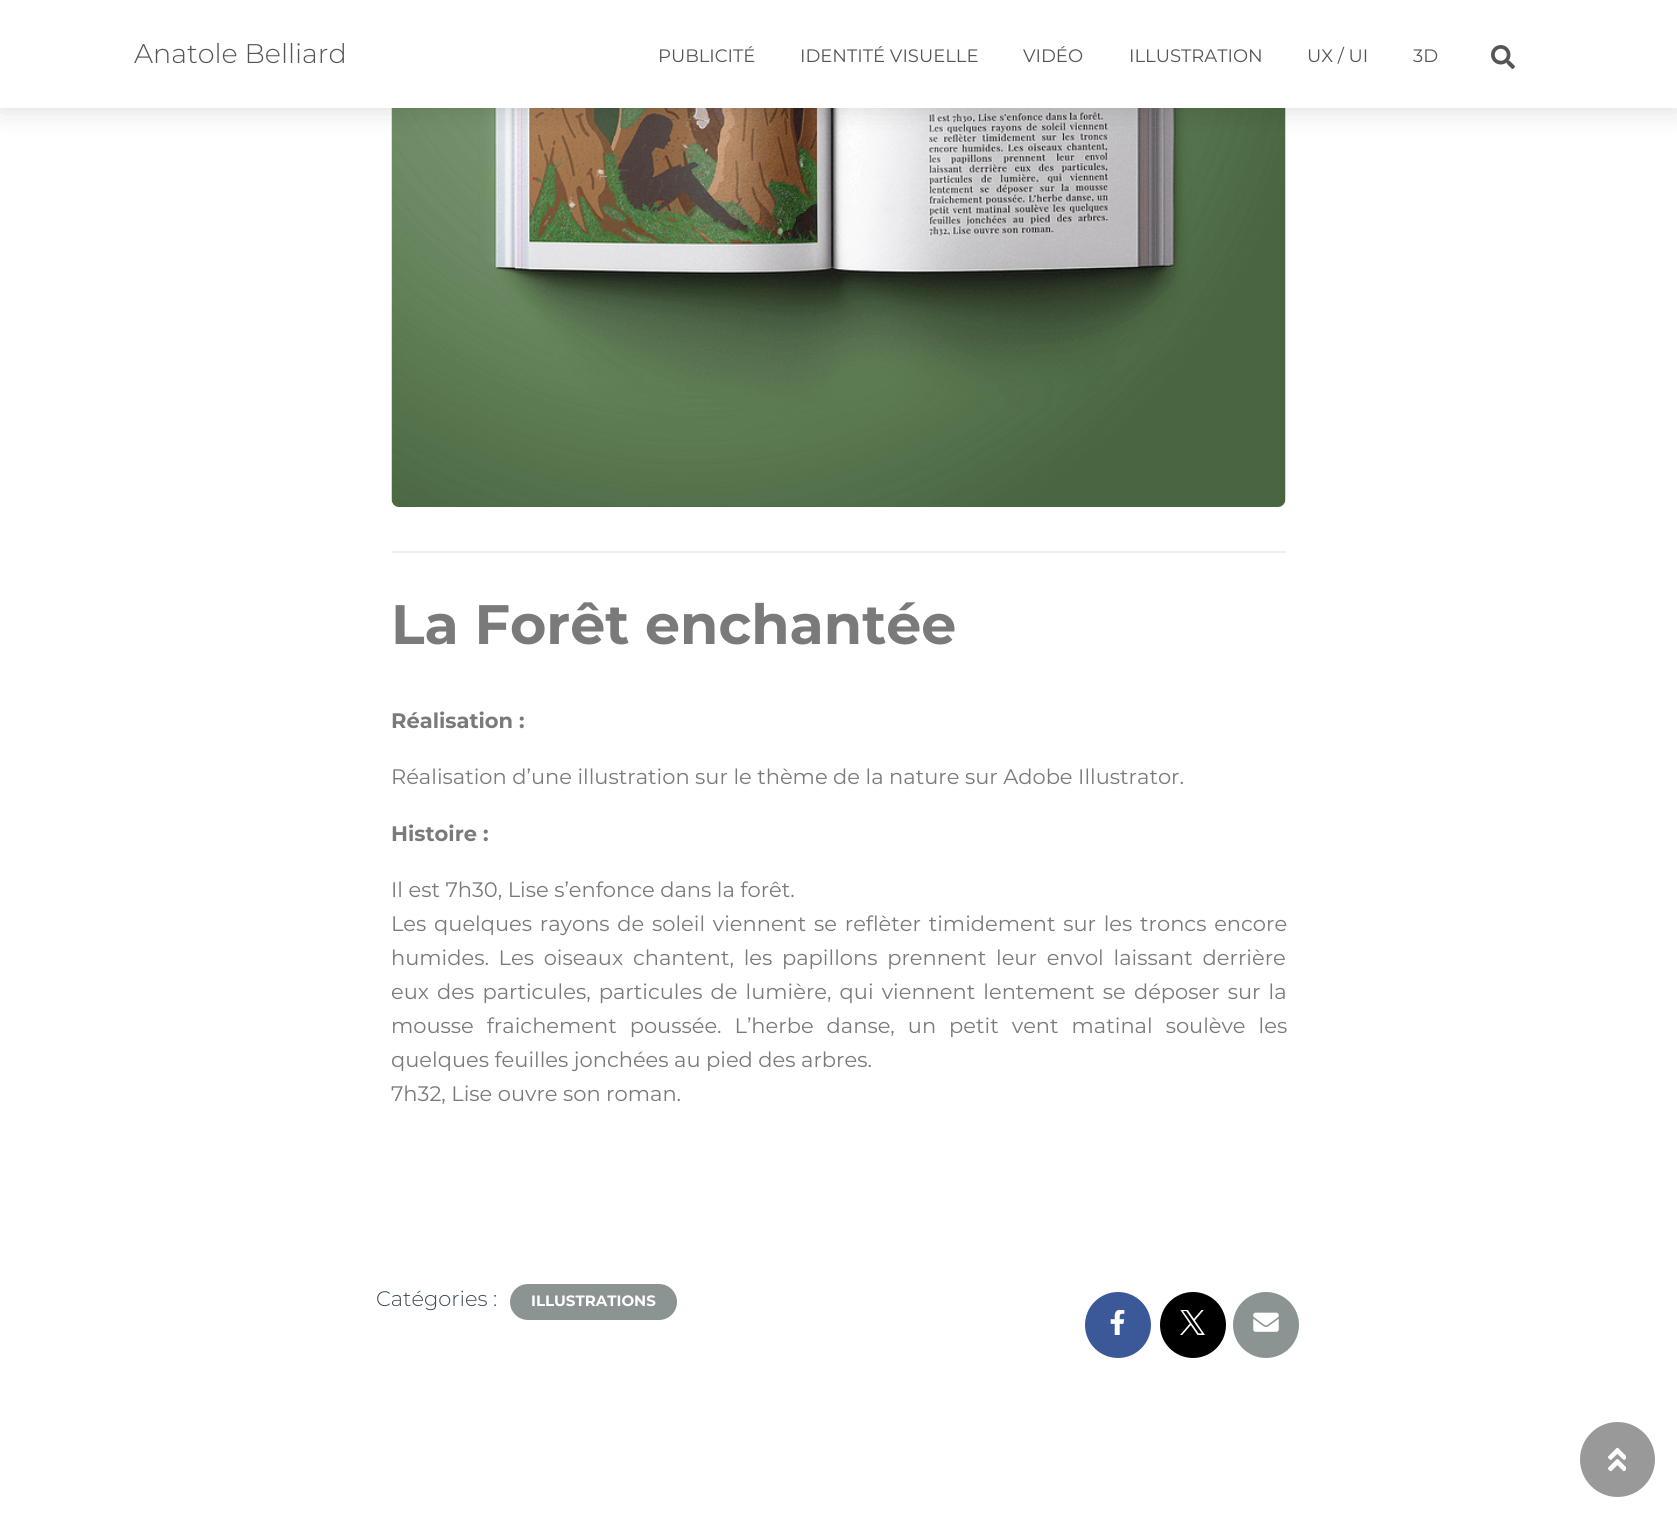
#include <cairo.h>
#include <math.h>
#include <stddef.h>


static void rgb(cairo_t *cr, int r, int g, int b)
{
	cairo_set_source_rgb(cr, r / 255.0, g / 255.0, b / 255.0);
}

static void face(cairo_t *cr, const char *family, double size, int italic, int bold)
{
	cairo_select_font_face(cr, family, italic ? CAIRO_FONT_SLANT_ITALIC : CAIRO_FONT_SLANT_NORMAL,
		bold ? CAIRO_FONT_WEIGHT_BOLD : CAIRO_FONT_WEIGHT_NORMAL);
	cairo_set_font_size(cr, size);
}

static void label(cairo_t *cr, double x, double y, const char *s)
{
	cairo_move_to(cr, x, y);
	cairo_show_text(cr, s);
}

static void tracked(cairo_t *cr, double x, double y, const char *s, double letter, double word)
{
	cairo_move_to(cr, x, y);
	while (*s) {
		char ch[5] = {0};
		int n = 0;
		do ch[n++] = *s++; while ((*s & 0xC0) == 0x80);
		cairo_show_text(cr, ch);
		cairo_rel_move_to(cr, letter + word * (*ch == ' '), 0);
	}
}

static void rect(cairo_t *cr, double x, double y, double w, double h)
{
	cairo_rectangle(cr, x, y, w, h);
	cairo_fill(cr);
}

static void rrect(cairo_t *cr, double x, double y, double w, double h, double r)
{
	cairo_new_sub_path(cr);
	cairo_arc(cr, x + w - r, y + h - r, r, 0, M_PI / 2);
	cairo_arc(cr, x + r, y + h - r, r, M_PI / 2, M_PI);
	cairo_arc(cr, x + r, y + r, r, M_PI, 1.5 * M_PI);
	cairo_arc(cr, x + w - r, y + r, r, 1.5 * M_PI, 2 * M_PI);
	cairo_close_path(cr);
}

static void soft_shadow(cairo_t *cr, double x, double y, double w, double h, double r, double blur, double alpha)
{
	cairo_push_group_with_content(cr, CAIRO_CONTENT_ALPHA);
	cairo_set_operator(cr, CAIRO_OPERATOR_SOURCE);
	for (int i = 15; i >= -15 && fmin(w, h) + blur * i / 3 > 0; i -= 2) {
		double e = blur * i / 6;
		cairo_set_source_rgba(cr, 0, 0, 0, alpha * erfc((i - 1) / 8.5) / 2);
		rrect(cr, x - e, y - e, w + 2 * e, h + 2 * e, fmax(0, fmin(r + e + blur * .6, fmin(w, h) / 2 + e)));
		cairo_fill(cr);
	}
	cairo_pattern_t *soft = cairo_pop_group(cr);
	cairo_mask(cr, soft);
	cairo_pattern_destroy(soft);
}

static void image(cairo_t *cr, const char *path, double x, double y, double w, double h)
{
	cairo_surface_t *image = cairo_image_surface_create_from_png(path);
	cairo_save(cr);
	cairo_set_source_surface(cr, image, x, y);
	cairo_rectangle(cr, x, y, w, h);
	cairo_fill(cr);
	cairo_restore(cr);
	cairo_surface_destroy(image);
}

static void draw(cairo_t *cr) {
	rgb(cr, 255, 255, 255);
	cairo_paint(cr);
	image(cr, "image1.png", 391, 108, 895, 399);
	rgb(cr, 0, 0, 0);
	soft_shadow(cr, 0, 0, 1677, 108, 0, 15, 0.15);
	rgb(cr, 255, 255, 255);
	rect(cr, 0, 0, 1677, 108);
	face(cr, "Montserrat Light", 27, 0, 0);
	rgb(cr, 85, 85, 85);
	label(cr, 134, 63, "Anatole Belliard");
	face(cr, "Montserrat", 18, 0, 0);
	label(cr, 658, 62, "PUBLICITÉ");
	label(cr, 800, 62, "IDENTITÉ VISUELLE");
	label(cr, 1023, 62, "VIDÉO");
	label(cr, 1129, 62, "ILLUSTRATION");
	label(cr, 1307, 62, "UX / UI");
	label(cr, 1413, 62, "3D");
	image(cr, "image0.png", 1491, 45, 24, 24);
	rgb(cr, 238, 238, 238);
	rect(cr, 392, 551, 894, 2);
	face(cr, "Montserrat", 55.5, 0, 1);
	rgb(cr, 122, 122, 122);
	label(cr, 391, 644, "La Forêt enchantée");
	face(cr, "Montserrat", 21, 0, 1);
	label(cr, 391, 728, "Réalisation :");
	face(cr, "Montserrat", 21, 0, 0);
	label(cr, 391, 784, "Réalisation d’une illustration sur le thème de la nature sur Adobe Illustrator.");
	face(cr, "Montserrat", 21, 0, 1);
	label(cr, 391, 841, "Histoire :");
	face(cr, "Montserrat", 21, 0, 0);
	label(cr, 391, 897, "Il est 7h30, Lise s’enfonce dans la forêt.");
	tracked(cr, 391, 931, "Les quelques rayons de soleil viennent se reflèter timidement sur les troncs encore", 0, 2.25);
	tracked(cr, 391, 965, "humides. Les oiseaux chantent, les papillons prennent leur envol laissant derrière", 0, 4.25);
	tracked(cr, 391, 999, "eux des particules, particules de lumière, qui viennent lentement se déposer sur la", 0, 2.6);
	tracked(cr, 391, 1033, "mousse fraichement poussée. L’herbe danse, un petit vent matinal soulève les", 0, 7.5);
	label(cr, 391, 1067, "quelques feuilles jonchées au pied des arbres.");
	label(cr, 391, 1101, "7h32, Lise ouvre son roman.");
	face(cr, "Montserrat Light", 21, 0, 0);
	rgb(cr, 60, 72, 88);
	label(cr, 376, 1306, "Catégories :");
	rgb(cr, 139, 148, 146);
	rrect(cr, 510, 1284, 167, 36, 18);
	cairo_fill(cr);
	face(cr, "Montserrat", 15, 0, 1);
	rgb(cr, 255, 255, 255);
	label(cr, 531, 1306, "ILLUSTRATIONS");
	rgb(cr, 59, 89, 152);
	cairo_new_path(cr);
	cairo_arc(cr, 1118, 1325, 33, 0, 2 * M_PI);
	cairo_fill(cr);
	image(cr, "image2.png", 1110, 1310, 15, 25);
	rgb(cr, 0, 0, 0);
	cairo_arc(cr, 1193, 1325, 33, 0, 2 * M_PI);
	cairo_fill(cr);
	image(cr, "image3.png", 1180, 1310, 25, 25);
	rgb(cr, 139, 148, 146);
	cairo_arc(cr, 1266, 1325, 33, 0, 2 * M_PI);
	cairo_fill(cr);
	image(cr, "image4.png", 1253, 1312, 26, 20);
	rgb(cr, 153, 153, 153);
	cairo_arc(cr, 1617.5, 1459.5, 37.5, 0, 2 * M_PI);
	cairo_fill(cr);
	image(cr, "image5.png", 1608, 1447, 18, 25);
}

int main(void) {
	cairo_surface_t *surface = cairo_image_surface_create(CAIRO_FORMAT_RGB24, 1677, 1519);
	cairo_t *cr = cairo_create(surface);
	cairo_font_options_t *options = cairo_font_options_create();
	cairo_font_options_set_hint_metrics(options, CAIRO_HINT_METRICS_OFF);
	cairo_font_options_set_hint_style(options, CAIRO_HINT_STYLE_NONE);
	cairo_set_font_options(cr, options);
	cairo_set_miter_limit(cr, 4);
	draw(cr);
	cairo_surface_write_to_png(surface, "render.png");
	cairo_font_options_destroy(options);
	cairo_destroy(cr);
	cairo_surface_destroy(surface);
	return 0;
}
